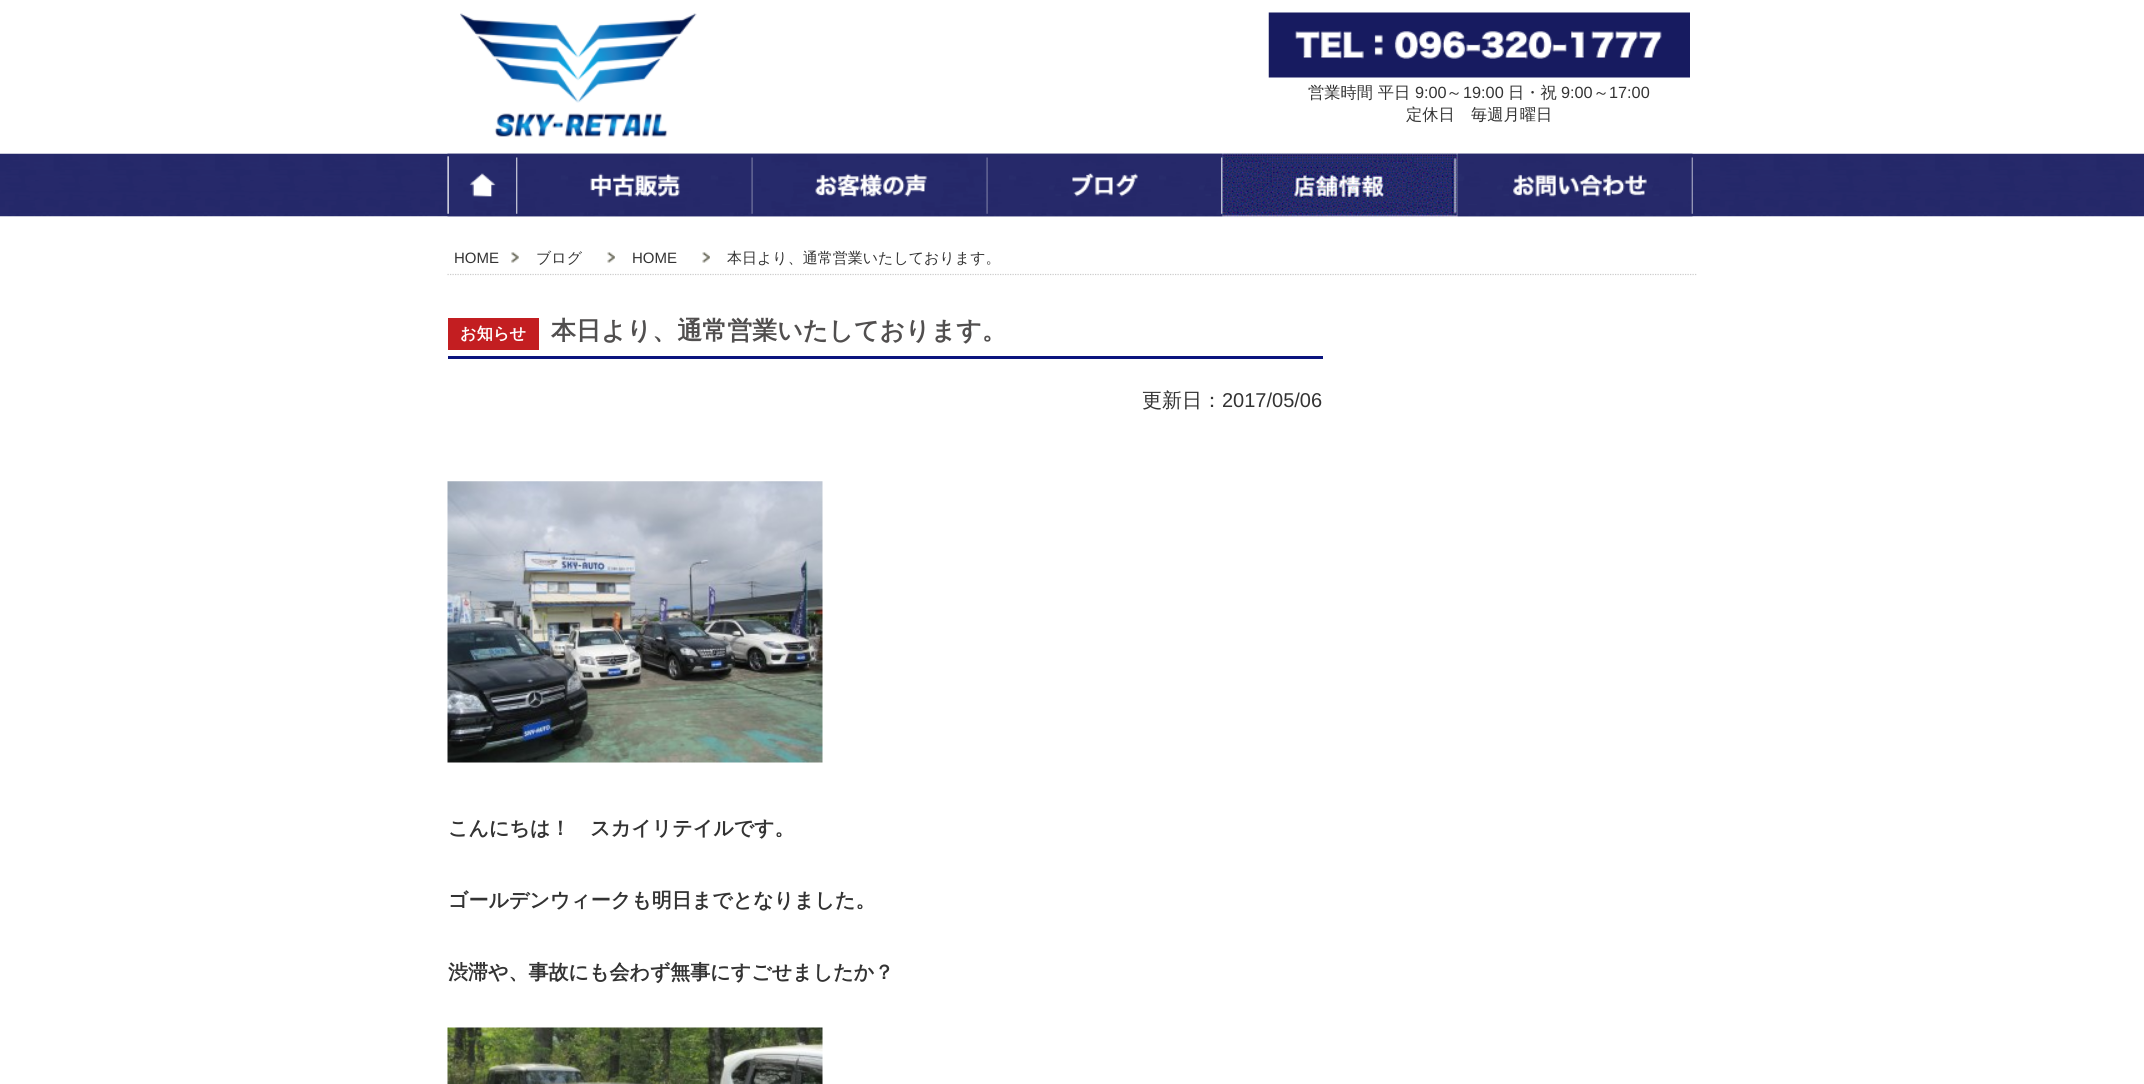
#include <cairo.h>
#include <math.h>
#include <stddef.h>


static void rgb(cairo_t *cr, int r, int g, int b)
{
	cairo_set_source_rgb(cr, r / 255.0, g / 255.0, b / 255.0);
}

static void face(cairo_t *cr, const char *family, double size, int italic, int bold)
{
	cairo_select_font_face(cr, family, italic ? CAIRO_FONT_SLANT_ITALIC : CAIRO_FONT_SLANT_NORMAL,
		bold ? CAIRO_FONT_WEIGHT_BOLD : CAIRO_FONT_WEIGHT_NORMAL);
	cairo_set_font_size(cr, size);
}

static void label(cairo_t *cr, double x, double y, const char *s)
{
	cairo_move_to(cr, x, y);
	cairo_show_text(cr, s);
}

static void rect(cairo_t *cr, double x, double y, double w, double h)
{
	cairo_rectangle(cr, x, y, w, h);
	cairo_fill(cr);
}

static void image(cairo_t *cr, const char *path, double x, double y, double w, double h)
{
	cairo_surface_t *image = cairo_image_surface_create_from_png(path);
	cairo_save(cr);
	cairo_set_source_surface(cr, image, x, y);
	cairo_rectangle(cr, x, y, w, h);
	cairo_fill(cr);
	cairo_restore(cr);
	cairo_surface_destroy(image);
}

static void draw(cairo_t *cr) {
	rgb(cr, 255, 255, 255);
	cairo_paint(cr);
	image(cr, "image0.png", 460, 13, 237, 124);
	image(cr, "image1.png", 1268, 12, 422, 66);
	face(cr, "WenQuanYi Zen Hei Medium", 16.25, 0, 0);
	rgb(cr, 51, 51, 51);
	label(cr, 1308, 98, "営業時間 平日");
	face(cr, "Liberation Sans", 16.25, 0, 0);
	label(cr, 1415, 98, "9:00");
	face(cr, "WenQuanYi Zen Hei Medium", 16.25, 0, 0);
	label(cr, 1446, 98, "～");
	face(cr, "Liberation Sans", 16.25, 0, 0);
	label(cr, 1463, 98, "19:00");
	face(cr, "WenQuanYi Zen Hei Medium", 16.25, 0, 0);
	label(cr, 1508, 98, "日・祝");
	face(cr, "Liberation Sans", 16.25, 0, 0);
	label(cr, 1561, 98, "9:00");
	face(cr, "WenQuanYi Zen Hei Medium", 16.25, 0, 0);
	label(cr, 1593, 98, "～");
	face(cr, "Liberation Sans", 16.25, 0, 0);
	label(cr, 1609, 98, "17:00");
	face(cr, "WenQuanYi Zen Hei Medium", 16.25, 0, 0);
	label(cr, 1406, 120, "定休日　毎週月曜日");
	image(cr, "image2.png", 0, 153, 2144, 64);
	image(cr, "image3.png", 447, 153, 71, 64);
	image(cr, "image4.png", 517, 153, 236, 64);
	image(cr, "image5.png", 752, 153, 236, 64);
	image(cr, "image6.png", 987, 153, 236, 64);
	image(cr, "image7.png", 1222, 153, 236, 64);
	image(cr, "image8.png", 1457, 153, 236, 64);
	cairo_new_path(cr);
	cairo_move_to(cr, 447.5, 274.5);
	cairo_line_to(cr, 1697.5, 274.5);
	rgb(cr, 204, 204, 204);
	cairo_set_line_width(cr, 1.2);
	cairo_set_dash(cr, (double[]){1.25, 1.25}, 2, 0);
	cairo_stroke(cr);
	face(cr, "Liberation Sans", 15, 0, 0);
	rgb(cr, 51, 51, 51);
	label(cr, 454, 263, "HOME");
	image(cr, "image9.png", 511, 252, 8, 11);
	face(cr, "WenQuanYi Zen Hei Medium", 15, 0, 0);
	label(cr, 536, 263, "ブログ");
	image(cr, "image10.png", 607, 252, 8, 11);
	face(cr, "Liberation Sans", 15, 0, 0);
	label(cr, 632, 263, "HOME");
	image(cr, "image10.png", 702, 252, 8, 11);
	face(cr, "WenQuanYi Zen Hei Medium", 15, 0, 0);
	label(cr, 727, 263, "本日より、通常営業いたしております。");
	rgb(cr, 10, 20, 126);
	rect(cr, 448, 356, 875, 3);
	rgb(cr, 195, 30, 33);
	rect(cr, 448, 318, 91, 32);
	face(cr, "WenQuanYi Zen Hei", 16.25, 0, 1);
	rgb(cr, 255, 255, 255);
	label(cr, 460, 339, "お知らせ");
	face(cr, "WenQuanYi Zen Hei", 25, 0, 1);
	rgb(cr, 81, 79, 79);
	label(cr, 551, 339, "本日より、通常営業いたしております。");
	face(cr, "WenQuanYi Zen Hei Medium", 20, 0, 0);
	rgb(cr, 51, 51, 51);
	label(cr, 1142, 407, "更新日：");
	face(cr, "Liberation Sans", 20, 0, 0);
	label(cr, 1222, 407, "2017/05/06");
	image(cr, "image11.png", 447, 481, 376, 282);
	face(cr, "WenQuanYi Zen Hei", 20, 0, 1);
	label(cr, 448, 835, "こんにちは！　スカイリテイルです。");
	label(cr, 448, 907, "ゴールデンウィークも明日までとなりました。");
	label(cr, 448, 979, "渋滞や、事故にも会わず無事にすごせましたか？");
	image(cr, "image12.png", 447, 1027, 376, 57);
}

int main(void) {
	cairo_surface_t *surface = cairo_image_surface_create(CAIRO_FORMAT_RGB24, 2144, 1084);
	cairo_t *cr = cairo_create(surface);
	cairo_font_options_t *options = cairo_font_options_create();
	cairo_font_options_set_hint_metrics(options, CAIRO_HINT_METRICS_OFF);
	cairo_font_options_set_hint_style(options, CAIRO_HINT_STYLE_NONE);
	cairo_set_font_options(cr, options);
	cairo_set_miter_limit(cr, 4);
	draw(cr);
	cairo_surface_write_to_png(surface, "render.png");
	cairo_font_options_destroy(options);
	cairo_destroy(cr);
	cairo_surface_destroy(surface);
	return 0;
}
